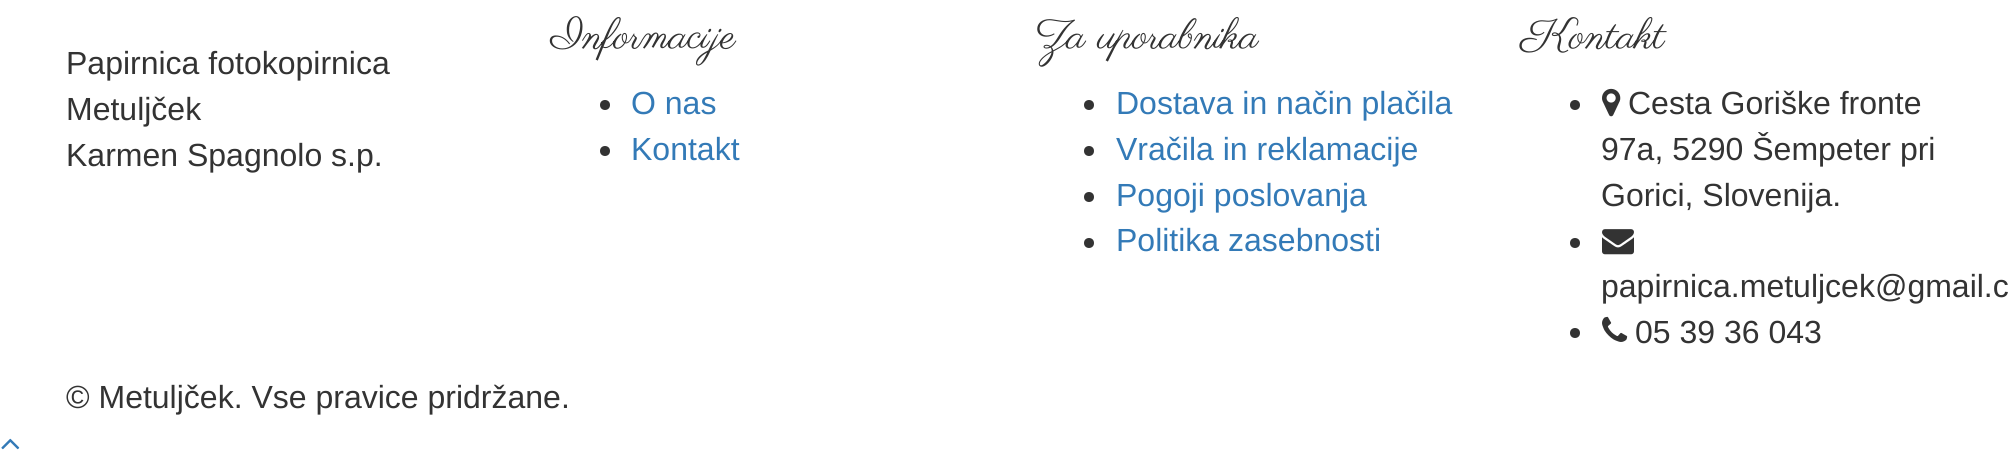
#include <cairo.h>
#include <math.h>
#include <stddef.h>


static void rgb(cairo_t *cr, int r, int g, int b)
{
	cairo_set_source_rgb(cr, r / 255.0, g / 255.0, b / 255.0);
}

static void face(cairo_t *cr, const char *family, double size, int italic, int bold)
{
	cairo_select_font_face(cr, family, italic ? CAIRO_FONT_SLANT_ITALIC : CAIRO_FONT_SLANT_NORMAL,
		bold ? CAIRO_FONT_WEIGHT_BOLD : CAIRO_FONT_WEIGHT_NORMAL);
	cairo_set_font_size(cr, size);
}

static void label(cairo_t *cr, double x, double y, const char *s)
{
	cairo_move_to(cr, x, y);
	cairo_show_text(cr, s);
}

static void image(cairo_t *cr, const char *path, double x, double y, double w, double h)
{
	cairo_surface_t *image = cairo_image_surface_create_from_png(path);
	cairo_save(cr);
	cairo_set_source_surface(cr, image, x, y);
	cairo_rectangle(cr, x, y, w, h);
	cairo_fill(cr);
	cairo_restore(cr);
	cairo_surface_destroy(image);
}

static void draw(cairo_t *cr) {
	rgb(cr, 255, 255, 255);
	cairo_paint(cr);
	face(cr, "Liberation Sans", 32, 0, 0);
	rgb(cr, 51, 51, 51);
	label(cr, 66, 74, "Papirnica fotokopirnica");
	label(cr, 66, 120, "Metuljček");
	label(cr, 66, 166, "Karmen Spagnolo s.p.");
	face(cr, "Parisienne", 42, 0, 0);
	label(cr, 551, 48, "Informacije");
	cairo_new_path(cr);
	cairo_arc(cr, 605, 105, 5, 0, 2 * M_PI);
	cairo_fill(cr);
	face(cr, "Liberation Sans", 32, 0, 0);
	rgb(cr, 51, 122, 183);
	label(cr, 631, 114, "O nas");
	rgb(cr, 51, 51, 51);
	cairo_new_path(cr);
	cairo_arc(cr, 605, 151, 5, 0, 2 * M_PI);
	cairo_fill(cr);
	rgb(cr, 51, 122, 183);
	label(cr, 631, 160, "Kontakt");
	face(cr, "Parisienne", 42, 0, 0);
	rgb(cr, 51, 51, 51);
	label(cr, 1036, 48, "Za uporabnika");
	cairo_new_path(cr);
	cairo_arc(cr, 1089, 105, 5, 0, 2 * M_PI);
	cairo_fill(cr);
	face(cr, "Liberation Sans", 32, 0, 0);
	rgb(cr, 51, 122, 183);
	label(cr, 1116, 114, "Dostava in način plačila");
	rgb(cr, 51, 51, 51);
	cairo_new_path(cr);
	cairo_arc(cr, 1089, 151, 5, 0, 2 * M_PI);
	cairo_fill(cr);
	rgb(cr, 51, 122, 183);
	label(cr, 1116, 160, "Vračila in reklamacije");
	rgb(cr, 51, 51, 51);
	cairo_new_path(cr);
	cairo_arc(cr, 1089, 197, 5, 0, 2 * M_PI);
	cairo_fill(cr);
	rgb(cr, 51, 122, 183);
	label(cr, 1116, 206, "Pogoji poslovanja");
	rgb(cr, 51, 51, 51);
	cairo_new_path(cr);
	cairo_arc(cr, 1089, 243, 5, 0, 2 * M_PI);
	cairo_fill(cr);
	rgb(cr, 51, 122, 183);
	label(cr, 1116, 251, "Politika zasebnosti");
	face(cr, "Parisienne", 42, 0, 0);
	rgb(cr, 51, 51, 51);
	label(cr, 1521, 48, "Kontakt");
	cairo_new_path(cr);
	cairo_arc(cr, 1575, 105, 5, 0, 2 * M_PI);
	cairo_fill(cr);
	image(cr, "image0.png", 1602, 88, 19, 29);
	face(cr, "Liberation Sans", 32, 0, 0);
	label(cr, 1628, 114, "Cesta Goriške fronte");
	label(cr, 1601, 160, "97a, 5290 Šempeter pri");
	label(cr, 1601, 206, "Gorici, Slovenija.");
	cairo_new_path(cr);
	cairo_arc(cr, 1575, 243, 5, 0, 2 * M_PI);
	cairo_fill(cr);
	image(cr, "image1.png", 1602, 229, 32, 26);
	label(cr, 1601, 297, "papirnica.metuljcek@gmail.c");
	cairo_new_path(cr);
	cairo_arc(cr, 1575, 333, 5, 0, 2 * M_PI);
	cairo_fill(cr);
	image(cr, "image2.png", 1602, 316, 26, 26);
	label(cr, 1635, 343, "05 39 36 043");
	label(cr, 66, 408, "© Metuljček. Vse pravice pridržane.");
	image(cr, "image3.png", 1, 438, 19, 12);
}

int main(void) {
	cairo_surface_t *surface = cairo_image_surface_create(CAIRO_FORMAT_RGB24, 2011, 468);
	cairo_t *cr = cairo_create(surface);
	cairo_font_options_t *options = cairo_font_options_create();
	cairo_font_options_set_hint_metrics(options, CAIRO_HINT_METRICS_OFF);
	cairo_font_options_set_hint_style(options, CAIRO_HINT_STYLE_NONE);
	cairo_set_font_options(cr, options);
	cairo_set_miter_limit(cr, 4);
	draw(cr);
	cairo_surface_write_to_png(surface, "render.png");
	cairo_font_options_destroy(options);
	cairo_destroy(cr);
	cairo_surface_destroy(surface);
	return 0;
}
